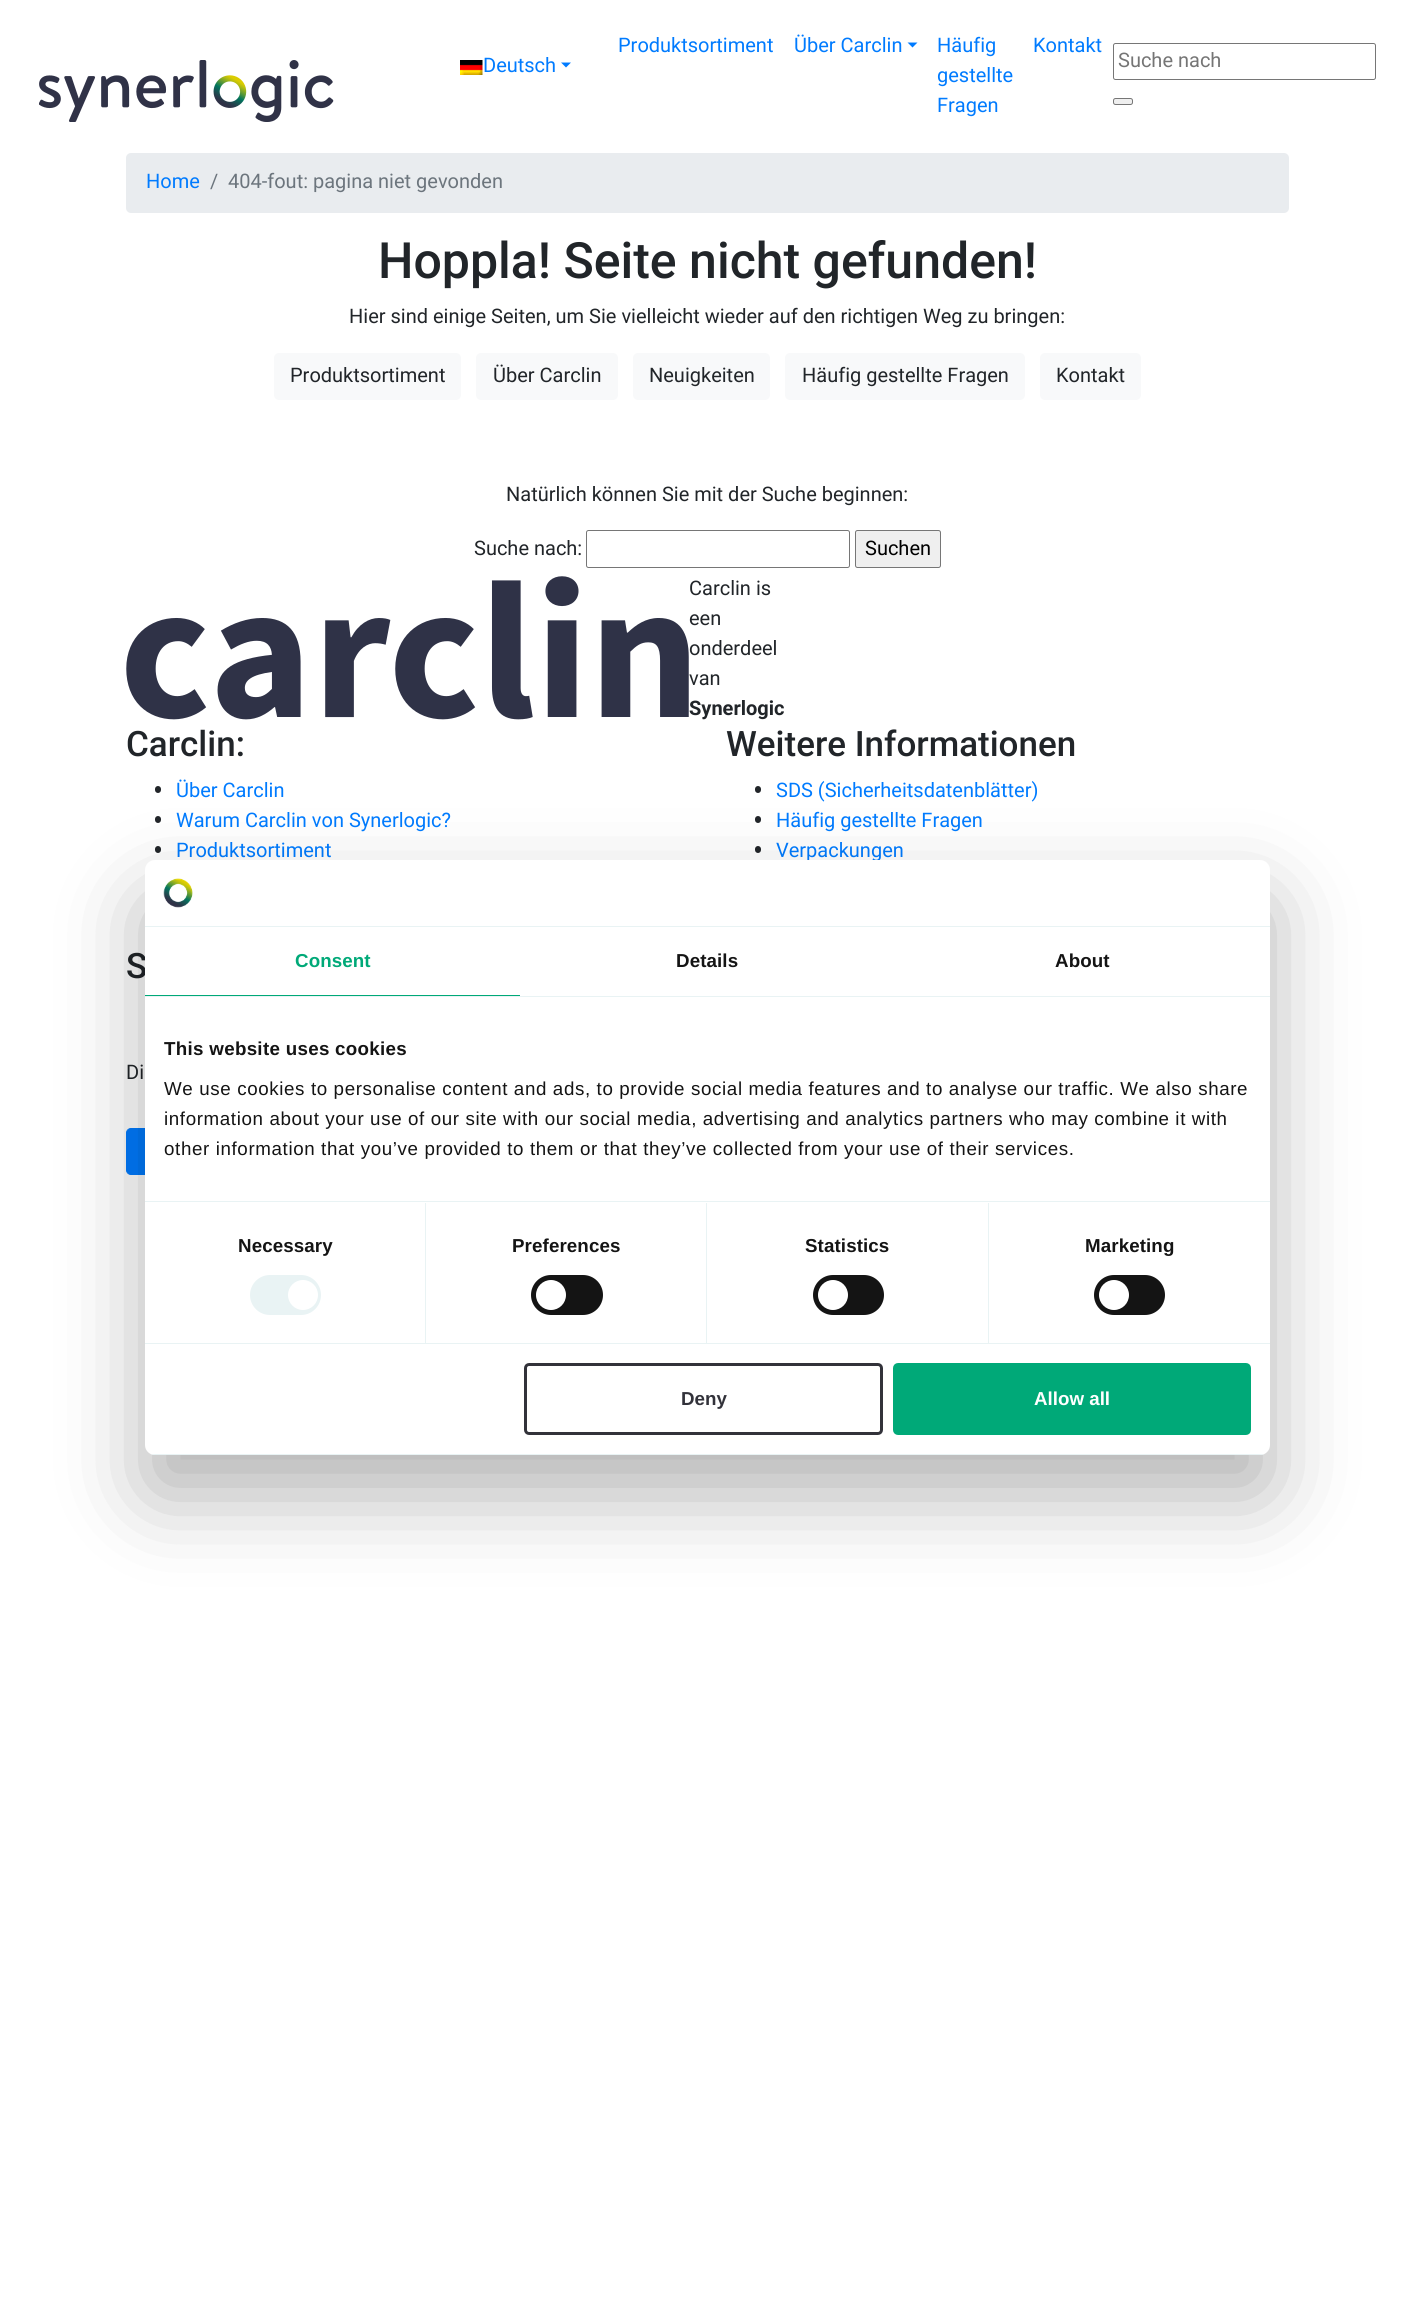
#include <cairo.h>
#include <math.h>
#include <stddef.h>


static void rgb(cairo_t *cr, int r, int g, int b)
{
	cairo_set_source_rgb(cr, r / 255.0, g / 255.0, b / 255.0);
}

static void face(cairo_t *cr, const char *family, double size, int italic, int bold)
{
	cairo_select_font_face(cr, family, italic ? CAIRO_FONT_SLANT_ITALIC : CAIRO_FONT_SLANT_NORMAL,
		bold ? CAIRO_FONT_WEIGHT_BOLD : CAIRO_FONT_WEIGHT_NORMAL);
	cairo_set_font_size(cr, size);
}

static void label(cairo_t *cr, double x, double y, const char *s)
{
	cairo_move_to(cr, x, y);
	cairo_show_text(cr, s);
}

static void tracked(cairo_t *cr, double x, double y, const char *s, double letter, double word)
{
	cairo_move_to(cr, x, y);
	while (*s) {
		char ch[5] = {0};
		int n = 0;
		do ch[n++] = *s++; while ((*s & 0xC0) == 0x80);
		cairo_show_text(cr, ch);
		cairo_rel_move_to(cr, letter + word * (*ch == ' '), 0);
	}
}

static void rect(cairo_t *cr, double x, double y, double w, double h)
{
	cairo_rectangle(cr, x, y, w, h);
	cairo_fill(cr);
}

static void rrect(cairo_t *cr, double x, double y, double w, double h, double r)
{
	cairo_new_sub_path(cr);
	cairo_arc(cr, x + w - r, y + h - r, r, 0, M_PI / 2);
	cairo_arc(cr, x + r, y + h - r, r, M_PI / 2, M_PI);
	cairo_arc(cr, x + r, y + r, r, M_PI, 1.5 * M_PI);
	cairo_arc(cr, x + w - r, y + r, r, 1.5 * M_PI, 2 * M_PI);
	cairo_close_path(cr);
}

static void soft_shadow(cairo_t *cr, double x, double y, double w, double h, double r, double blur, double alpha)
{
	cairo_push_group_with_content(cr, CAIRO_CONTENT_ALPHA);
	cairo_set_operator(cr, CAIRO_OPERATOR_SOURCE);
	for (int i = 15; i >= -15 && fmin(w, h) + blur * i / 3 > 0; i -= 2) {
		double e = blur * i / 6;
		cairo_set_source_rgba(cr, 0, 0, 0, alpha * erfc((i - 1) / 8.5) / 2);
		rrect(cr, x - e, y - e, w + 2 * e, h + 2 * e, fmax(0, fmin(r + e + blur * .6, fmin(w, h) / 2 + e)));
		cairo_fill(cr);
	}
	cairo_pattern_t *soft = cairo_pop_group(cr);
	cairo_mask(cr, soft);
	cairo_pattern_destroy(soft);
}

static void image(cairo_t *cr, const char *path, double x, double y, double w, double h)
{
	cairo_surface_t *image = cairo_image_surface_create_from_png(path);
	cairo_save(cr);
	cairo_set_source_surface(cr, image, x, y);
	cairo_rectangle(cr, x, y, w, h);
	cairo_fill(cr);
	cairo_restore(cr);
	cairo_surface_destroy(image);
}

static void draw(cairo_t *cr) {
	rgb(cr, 255, 255, 255);
	cairo_paint(cr);
	image(cr, "image0.png", 39, 60, 295, 62);
	image(cr, "image1.png", 460, 60, 23, 15);
	face(cr, "Roboto", 20, 0, 0);
	rgb(cr, 0, 123, 255);
	label(cr, 483, 72, "Deutsch");
	cairo_new_path(cr);
	cairo_move_to(cr, 561, 62.5);
	cairo_line_to(cr, 571, 62.5);
	cairo_line_to(cr, 566, 67.5);
	cairo_close_path(cr);
	cairo_fill(cr);
	label(cr, 618, 52, "Produktsortiment");
	label(cr, 794, 52, "Über Carclin");
	cairo_new_path(cr);
	cairo_move_to(cr, 907.5, 42.5);
	cairo_line_to(cr, 917.5, 42.5);
	cairo_line_to(cr, 912.5, 47.5);
	cairo_close_path(cr);
	cairo_fill(cr);
	label(cr, 937, 52, "Häufig");
	label(cr, 937, 82, "gestellte");
	label(cr, 937, 112, "Fragen");
	label(cr, 1033, 52, "Kontakt");
	rrect(cr, 1113.5, 43.5, 262, 36, 2);
	rgb(cr, 118, 118, 118);
	cairo_set_line_width(cr, 1);
	cairo_stroke(cr);
	rgb(cr, 117, 117, 117);
	label(cr, 1118, 67, "Suche nach");
	rgb(cr, 239, 239, 239);
	rrect(cr, 1113.5, 98.5, 19, 6, 2);
	cairo_fill_preserve(cr);
	rgb(cr, 118, 118, 118);
	cairo_stroke(cr);
	rgb(cr, 233, 236, 239);
	rrect(cr, 126, 153, 1163, 60, 5);
	cairo_fill(cr);
	rgb(cr, 0, 123, 255);
	label(cr, 146, 188, "Home");
	rgb(cr, 108, 117, 125);
	label(cr, 210, 188, "/");
	label(cr, 228, 188, "404-fout: pagina niet gevonden");
	face(cr, "Roboto Medium", 50, 0, 0);
	rgb(cr, 33, 37, 41);
	label(cr, 378, 278, "Hoppla! Seite nicht gefunden!");
	face(cr, "Roboto", 20, 0, 0);
	label(cr, 349, 323, "Hier sind einige Seiten, um Sie vielleicht wieder auf den richtigen Weg zu bringen:");
	rgb(cr, 248, 249, 250);
	rrect(cr, 274, 353, 187, 47, 5);
	cairo_fill(cr);
	rgb(cr, 33, 37, 41);
	label(cr, 290, 382, "Produktsortiment");
	rgb(cr, 248, 249, 250);
	rrect(cr, 476, 353, 142, 47, 5);
	cairo_fill(cr);
	rgb(cr, 33, 37, 41);
	label(cr, 493, 382, "Über Carclin");
	rgb(cr, 248, 249, 250);
	rrect(cr, 633, 353, 137, 47, 5);
	cairo_fill(cr);
	rgb(cr, 33, 37, 41);
	label(cr, 649, 382, "Neuigkeiten");
	rgb(cr, 248, 249, 250);
	rrect(cr, 785, 353, 240, 47, 5);
	cairo_fill(cr);
	rgb(cr, 33, 37, 41);
	label(cr, 802, 382, "Häufig gestellte Fragen");
	rgb(cr, 248, 249, 250);
	rrect(cr, 1040, 353, 101, 47, 5);
	cairo_fill(cr);
	rgb(cr, 33, 37, 41);
	label(cr, 1056, 382, "Kontakt");
	label(cr, 506, 501, "Natürlich können Sie mit der Suche beginnen:");
	label(cr, 474, 555, "Suche nach:");
	rrect(cr, 586.5, 530.5, 263, 37, 2);
	rgb(cr, 118, 118, 118);
	cairo_stroke(cr);
	rgb(cr, 239, 239, 239);
	rrect(cr, 855.5, 530.5, 85, 37, 2);
	cairo_fill_preserve(cr);
	rgb(cr, 118, 118, 118);
	cairo_stroke(cr);
	rgb(cr, 0, 0, 0);
	label(cr, 865, 555, "Suchen");
	image(cr, "image2.png", 126, 576, 563, 144);
	rgb(cr, 33, 37, 41);
	label(cr, 689, 595, "Carclin is");
	label(cr, 689, 625, "een");
	label(cr, 689, 655, "onderdeel");
	label(cr, 689, 685, "van");
	face(cr, "Roboto", 20, 0, 1);
	label(cr, 689, 715, "Synerlogic");
	face(cr, "Roboto Medium", 35, 0, 0);
	label(cr, 126, 756, "Carclin:");
	rrect(cr, 155, 786, 6, 7, 3);
	cairo_fill(cr);
	face(cr, "Roboto", 20, 0, 0);
	rgb(cr, 0, 123, 255);
	label(cr, 176, 797, "Über Carclin");
	rgb(cr, 33, 37, 41);
	rrect(cr, 155, 816, 6, 7, 3);
	cairo_fill(cr);
	rgb(cr, 0, 123, 255);
	label(cr, 176, 827, "Warum Carclin von Synerlogic?");
	rgb(cr, 33, 37, 41);
	rrect(cr, 155, 846, 6, 7, 3);
	cairo_fill(cr);
	rgb(cr, 0, 123, 255);
	label(cr, 176, 857, "Produktsortiment");
	face(cr, "Roboto Medium", 35, 0, 0);
	rgb(cr, 33, 37, 41);
	label(cr, 726, 756, "Weitere Informationen");
	rrect(cr, 755, 786, 6, 7, 3);
	cairo_fill(cr);
	face(cr, "Roboto", 20, 0, 0);
	rgb(cr, 0, 123, 255);
	label(cr, 776, 797, "SDS (Sicherheitsdatenblätter)");
	rgb(cr, 33, 37, 41);
	rrect(cr, 755, 816, 6, 7, 3);
	cairo_fill(cr);
	rgb(cr, 0, 123, 255);
	label(cr, 776, 827, "Häufig gestellte Fragen");
	rgb(cr, 33, 37, 41);
	rrect(cr, 755, 846, 6, 7, 3);
	cairo_fill(cr);
	rgb(cr, 0, 123, 255);
	label(cr, 776, 857, "Verpackungen");
	face(cr, "Roboto Medium", 35, 0, 0);
	rgb(cr, 33, 37, 41);
	label(cr, 126, 978, "S");
	face(cr, "Roboto", 20, 0, 0);
	label(cr, 126, 1079, "Di");
	rgb(cr, 0, 123, 255);
	rrect(cr, 126.5, 1128.5, 101, 46, 4.5);
	cairo_fill_preserve(cr);
	cairo_stroke(cr);
	rgb(cr, 0, 0, 0);
	soft_shadow(cr, 145, 900, 1125, 595, 10, 42.5, 0.3);
	rgb(cr, 255, 255, 255);
	rrect(cr, 145, 860, 1125, 595, 10);
	cairo_fill(cr);
	rgb(cr, 233, 243, 244);
	rect(cr, 145, 926, 1125, 1);
	image(cr, "image3.png", 163, 878, 30, 30);
	rect(cr, 145, 996, 1125, 1);
	rgb(cr, 0, 169, 120);
	rect(cr, 145, 995, 375, 1);
	face(cr, "Liberation Sans", 18.75, 0, 1);
	tracked(cr, 295, 967, "Consent", 0.1, 0);
	rgb(cr, 20, 20, 20);
	tracked(cr, 676, 967, "Details", 0.1, 0);
	tracked(cr, 1055, 967, "About", 0.1, 0);
	rgb(cr, 233, 243, 244);
	rect(cr, 145, 1201, 1125, 1);
	rgb(cr, 20, 20, 20);
	tracked(cr, 164, 1055, "This website uses cookies", 0.3, 0);
	face(cr, "Liberation Sans", 18.75, 0, 0);
	tracked(cr, 164, 1095, "We use cookies to personalise content and ads, to provide social media features and to analyse our traffic. We also share", 0.62, 0);
	tracked(cr, 164, 1125, "information about your use of our site with our social media, advertising and analytics partners who may combine it with", 0.62, 0);
	tracked(cr, 164, 1155, "other information that you’ve provided to them or that they’ve collected from your use of their services.", 0.62, 0);
	rgb(cr, 233, 243, 244);
	rect(cr, 145, 1343, 1125, 1);
	rect(cr, 425, 1203, 1, 140);
	face(cr, "Liberation Sans", 18.75, 0, 1);
	rgb(cr, 20, 20, 20);
	tracked(cr, 238, 1252, "Necessary", 0.1, 0);
	rgb(cr, 233, 243, 244);
	rrect(cr, 250, 1275, 71, 40, 20);
	cairo_fill(cr);
	rgb(cr, 255, 255, 255);
	cairo_arc(cr, 303, 1295, 15, 0, 2 * M_PI);
	cairo_fill(cr);
	rgb(cr, 233, 243, 244);
	rect(cr, 706, 1203, 1, 140);
	rgb(cr, 20, 20, 20);
	tracked(cr, 512, 1252, "Preferences", 0.1, 0);
	rrect(cr, 531, 1275, 72, 40, 20);
	cairo_fill(cr);
	rgb(cr, 255, 255, 255);
	cairo_arc(cr, 551, 1295, 15, 0, 2 * M_PI);
	cairo_fill(cr);
	rgb(cr, 233, 243, 244);
	rect(cr, 988, 1203, 1, 140);
	rgb(cr, 20, 20, 20);
	tracked(cr, 805, 1252, "Statistics", 0.1, 0);
	rrect(cr, 813, 1275, 71, 40, 20);
	cairo_fill(cr);
	rgb(cr, 255, 255, 255);
	cairo_arc(cr, 833, 1295, 15, 0, 2 * M_PI);
	cairo_fill(cr);
	rgb(cr, 20, 20, 20);
	tracked(cr, 1085, 1252, "Marketing", 0.1, 0);
	rrect(cr, 1094, 1275, 71, 40, 20);
	cairo_fill(cr);
	rgb(cr, 255, 255, 255);
	cairo_arc(cr, 1114, 1295, 15, 0, 2 * M_PI);
	cairo_fill(cr);
	cairo_save(cr);
	rrect(cr, 145, 860, 1125, 595, 10);
	cairo_clip(cr);
	rgb(cr, 233, 243, 244);
	rect(cr, 145, 1454, 1125, 1);
	cairo_restore(cr);
	rrect(cr, 525.5, 1364.5, 356, 69, 3.5);
	rgb(cr, 50, 50, 58);
	cairo_set_line_width(cr, 3);
	cairo_stroke(cr);
	label(cr, 681, 1405, "Deny");
	rgb(cr, 0, 169, 120);
	rrect(cr, 894.5, 1364.5, 355, 69, 3.5);
	cairo_fill_preserve(cr);
	cairo_stroke(cr);
	rgb(cr, 255, 255, 255);
	label(cr, 1034, 1405, "Allow all");
}

int main(void) {
	cairo_surface_t *surface = cairo_image_surface_create(CAIRO_FORMAT_RGB24, 1414, 2315);
	cairo_t *cr = cairo_create(surface);
	cairo_font_options_t *options = cairo_font_options_create();
	cairo_font_options_set_hint_metrics(options, CAIRO_HINT_METRICS_OFF);
	cairo_font_options_set_hint_style(options, CAIRO_HINT_STYLE_NONE);
	cairo_set_font_options(cr, options);
	cairo_set_miter_limit(cr, 4);
	draw(cr);
	cairo_surface_write_to_png(surface, "render.png");
	cairo_font_options_destroy(options);
	cairo_destroy(cr);
	cairo_surface_destroy(surface);
	return 0;
}
